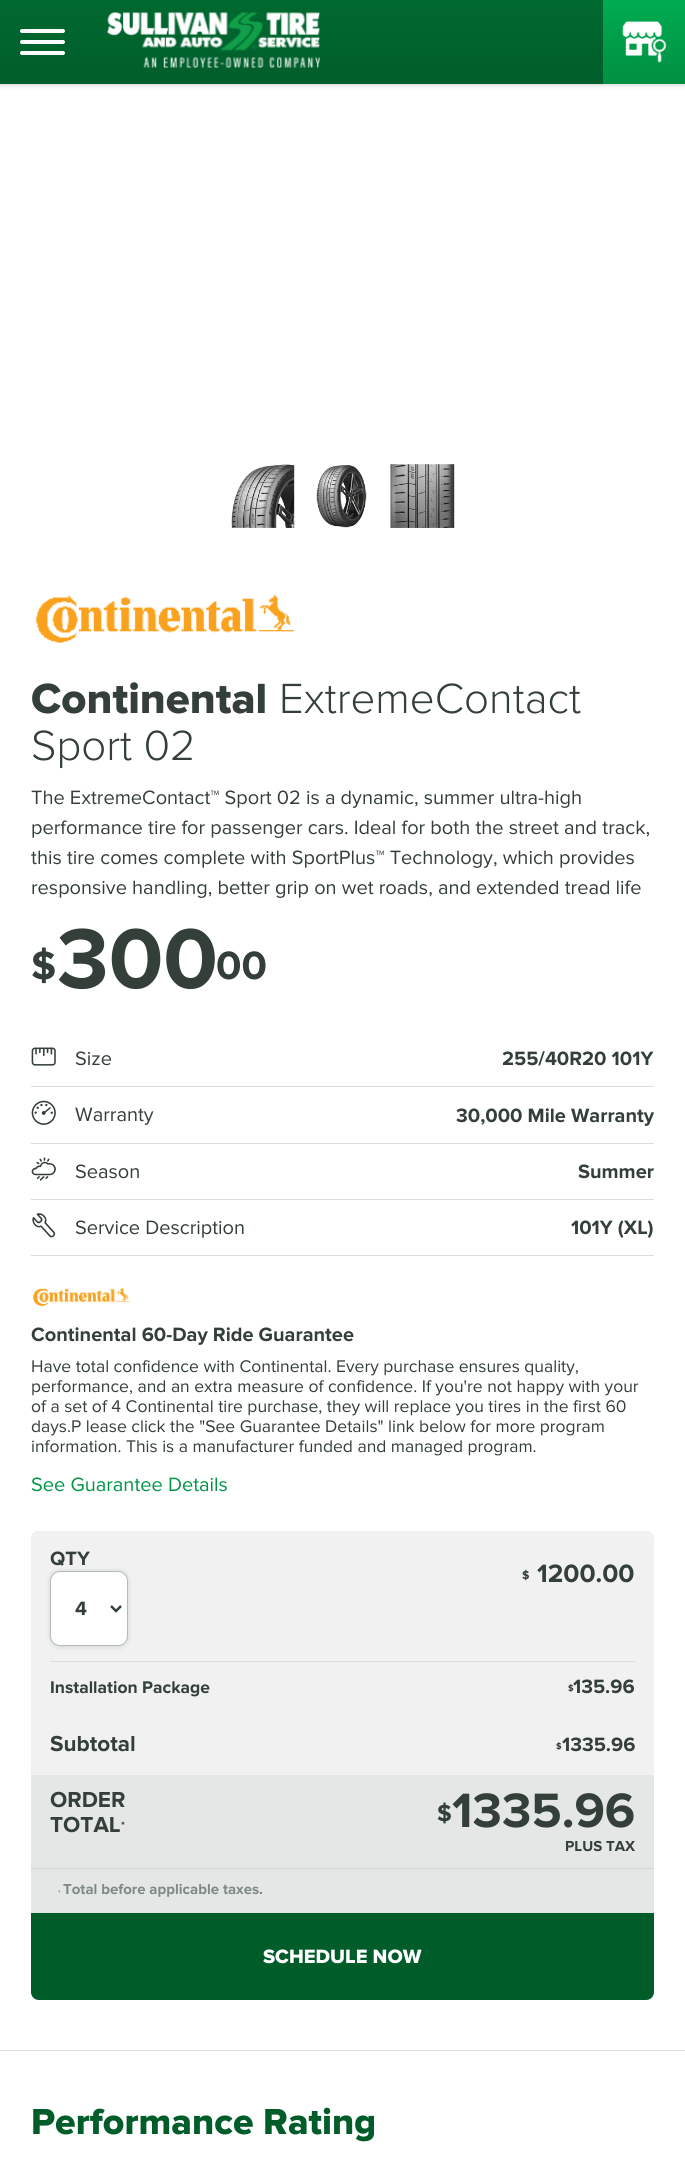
#include <cairo.h>
#include <math.h>
#include <stddef.h>


static void rgb(cairo_t *cr, int r, int g, int b)
{
	cairo_set_source_rgb(cr, r / 255.0, g / 255.0, b / 255.0);
}

static void face(cairo_t *cr, const char *family, double size, int italic, int bold)
{
	cairo_select_font_face(cr, family, italic ? CAIRO_FONT_SLANT_ITALIC : CAIRO_FONT_SLANT_NORMAL,
		bold ? CAIRO_FONT_WEIGHT_BOLD : CAIRO_FONT_WEIGHT_NORMAL);
	cairo_set_font_size(cr, size);
}

static void label(cairo_t *cr, double x, double y, const char *s)
{
	cairo_move_to(cr, x, y);
	cairo_show_text(cr, s);
}

static void rect(cairo_t *cr, double x, double y, double w, double h)
{
	cairo_rectangle(cr, x, y, w, h);
	cairo_fill(cr);
}

static void rrect(cairo_t *cr, double x, double y, double w, double h, double r)
{
	cairo_new_sub_path(cr);
	cairo_arc(cr, x + w - r, y + h - r, r, 0, M_PI / 2);
	cairo_arc(cr, x + r, y + h - r, r, M_PI / 2, M_PI);
	cairo_arc(cr, x + r, y + r, r, M_PI, 1.5 * M_PI);
	cairo_arc(cr, x + w - r, y + r, r, 1.5 * M_PI, 2 * M_PI);
	cairo_close_path(cr);
}

static void soft_shadow(cairo_t *cr, double x, double y, double w, double h, double r, double blur, double alpha)
{
	cairo_push_group_with_content(cr, CAIRO_CONTENT_ALPHA);
	cairo_set_operator(cr, CAIRO_OPERATOR_SOURCE);
	for (int i = 15; i >= -15 && fmin(w, h) + blur * i / 3 > 0; i -= 2) {
		double e = blur * i / 6;
		cairo_set_source_rgba(cr, 0, 0, 0, alpha * erfc((i - 1) / 8.5) / 2);
		rrect(cr, x - e, y - e, w + 2 * e, h + 2 * e, fmax(0, fmin(r + e + blur * .6, fmin(w, h) / 2 + e)));
		cairo_fill(cr);
	}
	cairo_pattern_t *soft = cairo_pop_group(cr);
	cairo_mask(cr, soft);
	cairo_pattern_destroy(soft);
}

static void image(cairo_t *cr, const char *path, double x, double y, double w, double h)
{
	cairo_surface_t *image = cairo_image_surface_create_from_png(path);
	cairo_save(cr);
	cairo_set_source_surface(cr, image, x, y);
	cairo_rectangle(cr, x, y, w, h);
	cairo_fill(cr);
	cairo_restore(cr);
	cairo_surface_destroy(image);
}

static void draw(cairo_t *cr) {
	cairo_pattern_t *gradient;
	rgb(cr, 255, 255, 255);
	cairo_paint(cr);
	rgb(cr, 0, 0, 0);
	soft_shadow(cr, 0, 0, 685, 84, 0, 3, 0.25);
	gradient = cairo_pattern_create_linear(343, 0, 343, 84);
	cairo_pattern_add_color_stop_rgba(gradient, 0, 0, 0.412, 0.188, 1);
	cairo_pattern_add_color_stop_rgba(gradient, 1, 0, 0.365, 0.165, 1);
	cairo_set_source(cr, gradient);
	cairo_pattern_destroy(gradient);
	rect(cr, 0, 0, 603, 84);
	rgb(cr, 255, 255, 255);
	rrect(cr, 20, 40, 45, 4, 2);
	cairo_fill(cr);
	rrect(cr, 20, 29, 45, 4, 2);
	cairo_fill(cr);
	rrect(cr, 20, 51, 45, 4, 2);
	cairo_fill(cr);
	image(cr, "image0.png", 107, 12, 213, 56);
	gradient = cairo_pattern_create_linear(644, 0, 644, 84);
	cairo_pattern_add_color_stop_rgba(gradient, 0, 0, 0.671, 0.31, 1);
	cairo_pattern_add_color_stop_rgba(gradient, 1, 0, 0.561, 0.259, 1);
	cairo_set_source(cr, gradient);
	cairo_pattern_destroy(gradient);
	rect(cr, 603, 0, 82, 84);
	image(cr, "image1.png", 622, 21, 45, 42);
	image(cr, "image2.png", 231, 464, 64, 64);
	image(cr, "image3.png", 316, 465, 51, 63);
	image(cr, "image4.png", 390, 464, 65, 64);
	image(cr, "image5.png", 36, 594, 258, 49);
	face(cr, "Proxima Nova ExtraBold", 43.75, 0, 0);
	rgb(cr, 51, 63, 56);
	label(cr, 31, 713, "Continental");
	face(cr, "Proxima Nova Light", 43.75, 0, 0);
	label(cr, 279, 713, "ExtremeContact");
	label(cr, 31, 760, "Sport 02");
	face(cr, "Proxima Nova", 20, 0, 0);
	label(cr, 31, 804, "The ExtremeContact™ Sport 02 is a dynamic, summer ultra-high");
	label(cr, 31, 834, "performance tire for passenger cars. Ideal for both the street and track,");
	label(cr, 31, 864, "this tire comes complete with SportPlus™ Technology, which provides");
	label(cr, 31, 894, "responsive handling, better grip on wet roads, and extended tread life");
	face(cr, "Proxima Nova", 41, 0, 1);
	label(cr, 31, 979, "$");
	face(cr, "Proxima Nova", 88, 0, 1);
	label(cr, 57, 988, "300");
	face(cr, "Proxima Nova", 41, 0, 1);
	label(cr, 216, 979, "00");
	rgb(cr, 217, 221, 219);
	rect(cr, 31, 1086, 623, 1);
	image(cr, "image6.png", 31, 1047, 25, 19);
	face(cr, "Proxima Nova", 20, 0, 0);
	rgb(cr, 51, 63, 56);
	label(cr, 75, 1065, "Size");
	face(cr, "Proxima Nova", 20, 0, 1);
	label(cr, 502, 1065, "255/40R20 101Y");
	rgb(cr, 217, 221, 219);
	rect(cr, 31, 1143, 623, 1);
	image(cr, "image7.png", 31, 1100, 25, 25);
	face(cr, "Proxima Nova", 20, 0, 0);
	rgb(cr, 51, 63, 56);
	label(cr, 75, 1121, "Warranty");
	face(cr, "Proxima Nova", 20, 0, 1);
	label(cr, 456, 1122, "30,000 Mile Warranty");
	rgb(cr, 217, 221, 219);
	rect(cr, 31, 1199, 623, 1);
	image(cr, "image8.png", 31, 1157, 25, 24);
	face(cr, "Proxima Nova", 20, 0, 0);
	rgb(cr, 51, 63, 56);
	label(cr, 75, 1178, "Season");
	face(cr, "Proxima Nova", 20, 0, 1);
	label(cr, 578, 1178, "Summer");
	image(cr, "image9.png", 32, 1213, 24, 25);
	face(cr, "Proxima Nova", 20, 0, 0);
	label(cr, 75, 1234, "Service Description");
	face(cr, "Proxima Nova", 20, 0, 1);
	label(cr, 571, 1234, "101Y (XL)");
	rgb(cr, 217, 221, 219);
	rect(cr, 31, 1255, 623, 1);
	image(cr, "image10.png", 33, 1287, 97, 19);
	rgb(cr, 51, 63, 56);
	label(cr, 31, 1341, "Continental 60-Day Ride Guarantee");
	face(cr, "Proxima Nova", 17.5, 0, 0);
	label(cr, 31, 1372, "Have total confidence with Continental. Every purchase ensures quality,");
	label(cr, 31, 1392, "performance, and an extra measure of confidence. If you're not happy with your");
	label(cr, 31, 1412, "of a set of 4 Continental tire purchase, they will replace you tires in the first 60");
	label(cr, 31, 1432, "days.P lease click the \"See Guarantee Details\" link below for more program");
	label(cr, 31, 1452, "information. This is a manufacturer funded and managed program.");
	face(cr, "Proxima Nova", 20, 0, 0);
	rgb(cr, 0, 149, 69);
	label(cr, 31, 1491, "See Guarantee Details");
	rgb(cr, 228, 231, 229);
	rrect(cr, 31, 1531, 623, 469, 8);
	cairo_fill(cr);
	rgb(cr, 240, 241, 240);
	cairo_new_path(cr);
	cairo_move_to(cr, 39, 1531);
	cairo_line_to(cr, 646, 1531);
	cairo_curve_to(cr, 650.5, 1531, 654, 1534.5, 654, 1539);
	cairo_line_to(cr, 654, 1775);
	cairo_line_to(cr, 31, 1775);
	cairo_line_to(cr, 31, 1539);
	cairo_curve_to(cr, 31, 1534.5, 34.5, 1531, 39, 1531);
	cairo_close_path(cr);
	cairo_fill(cr);
	face(cr, "Proxima Nova", 20, 0, 1);
	rgb(cr, 51, 63, 56);
	label(cr, 50, 1565, "QTY");
	rgb(cr, 217, 221, 219);
	soft_shadow(cr, 49, 1570, 80, 78, 11, 2, 1);
	rgb(cr, 255, 255, 255);
	rrect(cr, 50.5, 1571.5, 77, 74, 9.5);
	cairo_fill_preserve(cr);
	rgb(cr, 180, 187, 183);
	cairo_set_line_width(cr, 1);
	cairo_stroke(cr);
	cairo_new_path(cr);
	cairo_move_to(cr, 111, 1606);
	cairo_line_to(cr, 116, 1611);
	cairo_line_to(cr, 121, 1606);
	rgb(cr, 51, 63, 56);
	cairo_set_line_width(cr, 2.5);
	cairo_stroke(cr);
	label(cr, 75, 1615, "4");
	face(cr, "Proxima Nova", 12, 0, 1);
	label(cr, 522, 1579, "$");
	face(cr, "Proxima Nova", 26, 0, 1);
	label(cr, 537, 1582, "1200.00");
	rgb(cr, 217, 221, 219);
	rect(cr, 50, 1661, 585, 1);
	face(cr, "Proxima Nova", 17.5, 0, 1);
	rgb(cr, 51, 63, 56);
	label(cr, 50, 1693, "Installation Package");
	face(cr, "Proxima Nova", 9, 0, 1);
	label(cr, 568, 1691, "$");
	face(cr, "Proxima Nova", 20, 0, 1);
	label(cr, 573, 1693, "135.96");
	face(cr, "Proxima Nova", 22.5, 0, 1);
	label(cr, 50, 1751, "Subtotal");
	face(cr, "Proxima Nova", 9, 0, 1);
	label(cr, 556, 1749, "$");
	face(cr, "Proxima Nova", 20, 0, 1);
	label(cr, 562, 1751, "1335.96");
	face(cr, "Proxima Nova", 22.5, 0, 1);
	label(cr, 50, 1807, "ORDER");
	label(cr, 50, 1832, "TOTAL");
	face(cr, "Proxima Nova", 11, 0, 1);
	label(cr, 121, 1829, "*");
	face(cr, "Proxima Nova", 24, 0, 1);
	label(cr, 437, 1821, "$");
	face(cr, "Proxima Nova", 50, 0, 1);
	label(cr, 452, 1827, "1335.96");
	face(cr, "Proxima Nova", 15, 0, 1);
	label(cr, 565, 1851, "PLUS TAX");
	rgb(cr, 209, 214, 211);
	rect(cr, 31, 1868, 623, 1);
	face(cr, "Proxima Nova", 7, 0, 1);
	rgb(cr, 127, 138, 132);
	label(cr, 58, 1895, "*");
	face(cr, "Proxima Nova", 15, 0, 1);
	label(cr, 63, 1894, "Total before applicable taxes.");
	rgb(cr, 0, 93, 42);
	cairo_new_path(cr);
	cairo_move_to(cr, 31, 1913);
	cairo_line_to(cr, 654, 1913);
	cairo_line_to(cr, 654, 1992);
	cairo_curve_to(cr, 654, 1996.5, 650.5, 2000, 646, 2000);
	cairo_line_to(cr, 39, 2000);
	cairo_curve_to(cr, 34.5, 2000, 31, 1996.5, 31, 1992);
	cairo_close_path(cr);
	cairo_fill(cr);
	face(cr, "Proxima Nova ExtraBold", 20, 0, 0);
	rgb(cr, 255, 255, 255);
	label(cr, 263, 1963, "SCHEDULE NOW");
	rgb(cr, 217, 221, 219);
	rect(cr, 0, 2050, 685, 1);
	face(cr, "Proxima Nova ExtraBold", 37.5, 0, 0);
	rgb(cr, 0, 93, 42);
	label(cr, 31, 2134, "Performance Rating");
}

int main(void) {
	cairo_surface_t *surface = cairo_image_surface_create(CAIRO_FORMAT_RGB24, 685, 2161);
	cairo_t *cr = cairo_create(surface);
	cairo_font_options_t *options = cairo_font_options_create();
	cairo_font_options_set_hint_metrics(options, CAIRO_HINT_METRICS_OFF);
	cairo_font_options_set_hint_style(options, CAIRO_HINT_STYLE_NONE);
	cairo_set_font_options(cr, options);
	cairo_set_miter_limit(cr, 4);
	draw(cr);
	cairo_surface_write_to_png(surface, "render.png");
	cairo_font_options_destroy(options);
	cairo_destroy(cr);
	cairo_surface_destroy(surface);
	return 0;
}
